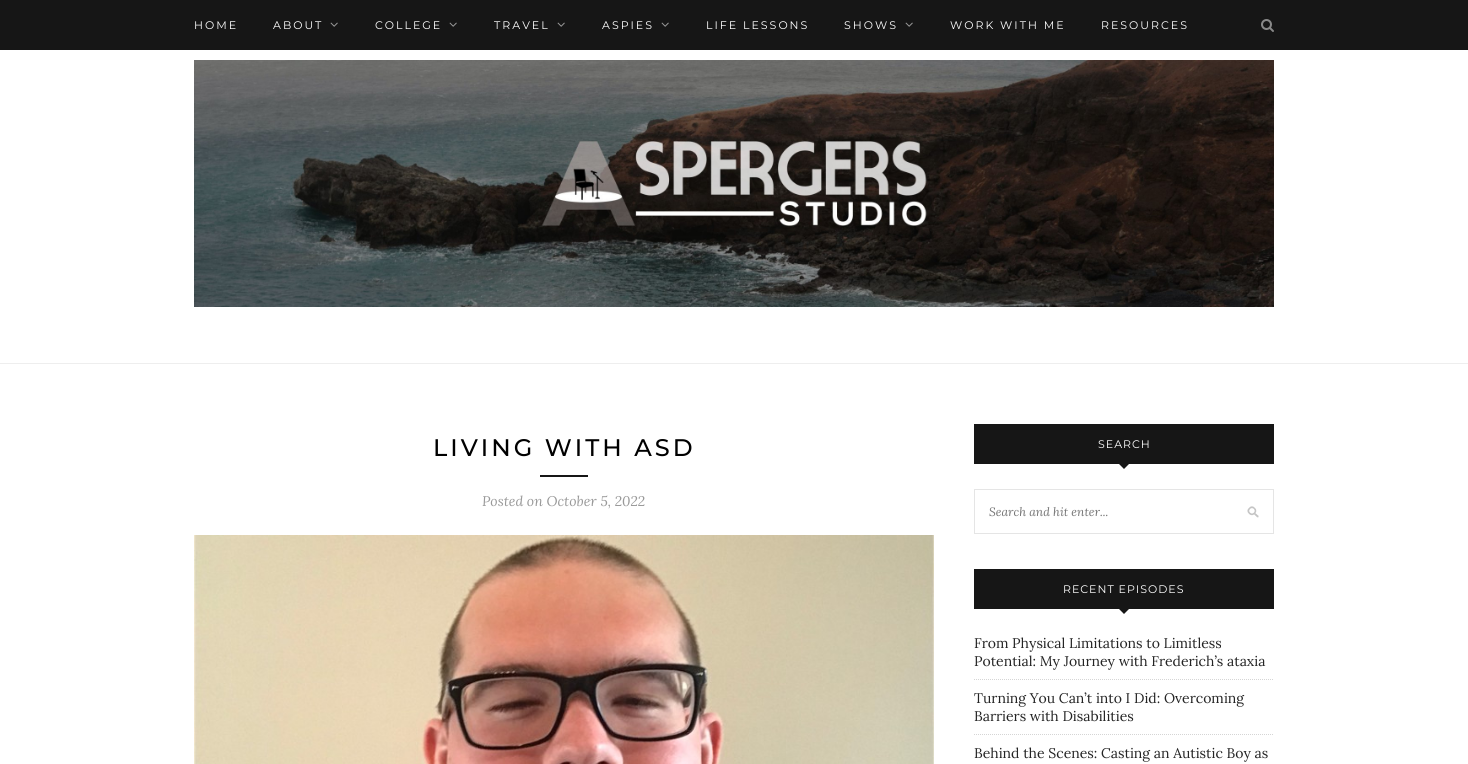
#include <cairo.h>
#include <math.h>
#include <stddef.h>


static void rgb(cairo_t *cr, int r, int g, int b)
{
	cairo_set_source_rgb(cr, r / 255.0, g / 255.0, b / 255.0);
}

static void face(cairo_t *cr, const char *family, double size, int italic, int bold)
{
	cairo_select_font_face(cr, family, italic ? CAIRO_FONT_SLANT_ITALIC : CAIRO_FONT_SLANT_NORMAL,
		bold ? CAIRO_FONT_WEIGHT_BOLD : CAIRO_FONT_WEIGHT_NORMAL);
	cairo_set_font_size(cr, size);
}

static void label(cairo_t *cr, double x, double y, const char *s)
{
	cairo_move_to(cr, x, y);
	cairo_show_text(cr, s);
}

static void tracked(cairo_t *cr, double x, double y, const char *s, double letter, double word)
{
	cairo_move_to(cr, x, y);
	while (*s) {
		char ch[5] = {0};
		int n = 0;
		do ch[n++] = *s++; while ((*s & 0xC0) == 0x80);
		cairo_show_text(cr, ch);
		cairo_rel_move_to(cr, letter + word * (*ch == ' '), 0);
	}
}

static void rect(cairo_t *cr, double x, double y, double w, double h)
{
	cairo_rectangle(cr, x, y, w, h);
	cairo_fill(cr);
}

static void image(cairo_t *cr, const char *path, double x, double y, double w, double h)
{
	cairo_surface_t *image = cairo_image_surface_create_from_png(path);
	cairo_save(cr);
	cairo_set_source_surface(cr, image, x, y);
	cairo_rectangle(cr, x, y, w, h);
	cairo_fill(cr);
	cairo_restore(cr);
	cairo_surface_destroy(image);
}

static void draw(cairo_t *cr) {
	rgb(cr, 255, 255, 255);
	cairo_paint(cr);
	rgb(cr, 22, 22, 22);
	rect(cr, 0, 0, 1468, 50);
	face(cr, "Montserrat", 11, 0, 0);
	rgb(cr, 255, 255, 255);
	tracked(cr, 194, 29, "HOME", 2, 0);
	tracked(cr, 273, 29, "ABOUT", 2, 0);
	image(cr, "image0.png", 330, 22, 8, 5);
	tracked(cr, 375, 29, "COLLEGE", 2, 0);
	image(cr, "image0.png", 449, 22, 8, 5);
	tracked(cr, 494, 29, "TRAVEL", 2, 0);
	image(cr, "image0.png", 557, 22, 8, 5);
	tracked(cr, 602, 29, "ASPIES", 2, 0);
	image(cr, "image0.png", 661, 22, 8, 5);
	tracked(cr, 706, 29, "LIFE LESSONS", 2, 0);
	tracked(cr, 844, 29, "SHOWS", 2, 0);
	image(cr, "image0.png", 905, 22, 8, 5);
	tracked(cr, 950, 29, "WORK WITH ME", 2, 0);
	tracked(cr, 1101, 29, "RESOURCES", 2, 0);
	image(cr, "image1.png", 1261, 19, 13, 13);
	rgb(cr, 238, 238, 238);
	rect(cr, 0, 363, 1468, 1);
	image(cr, "image2.png", 194, 60, 1080, 247);
	face(cr, "Montserrat Medium", 24, 0, 0);
	rgb(cr, 0, 0, 0);
	tracked(cr, 433, 456, "LIVING WITH ASD", 3, 0);
	rgb(cr, 22, 22, 22);
	rect(cr, 540, 475, 48, 2);
	face(cr, "Lora", 14, 1, 0);
	rgb(cr, 153, 153, 153);
	label(cr, 482, 506, "Posted on October 5, 2022");
	image(cr, "image3.png", 194, 535, 740, 229);
	rgb(cr, 22, 22, 22);
	rect(cr, 974, 424, 300, 40);
	face(cr, "Montserrat", 11, 0, 0);
	rgb(cr, 255, 255, 255);
	tracked(cr, 1098, 448, "SEARCH", 1, 0);
	rgb(cr, 22, 22, 22);
	cairo_new_path(cr);
	cairo_move_to(cr, 1119, 464);
	cairo_line_to(cr, 1129, 464);
	cairo_line_to(cr, 1124, 469);
	cairo_close_path(cr);
	cairo_fill(cr);
	image(cr, "image4.png", 1247, 506, 12, 12);
	cairo_rectangle(cr, 974.5, 489.5, 299, 44);
	rgb(cr, 229, 229, 229);
	cairo_set_line_width(cr, 1);
	cairo_stroke(cr);
	face(cr, "Lora", 12, 1, 0);
	rgb(cr, 117, 117, 117);
	label(cr, 989, 516, "Search and hit enter...");
	rgb(cr, 22, 22, 22);
	rect(cr, 974, 569, 300, 40);
	face(cr, "Montserrat", 11, 0, 0);
	rgb(cr, 255, 255, 255);
	tracked(cr, 1063, 593, "RECENT EPISODES", 1, 0);
	rgb(cr, 22, 22, 22);
	cairo_new_path(cr);
	cairo_move_to(cr, 1119, 609);
	cairo_line_to(cr, 1129, 609);
	cairo_line_to(cr, 1124, 614);
	cairo_close_path(cr);
	cairo_fill(cr);
	cairo_new_path(cr);
	cairo_move_to(cr, 974, 679.5);
	cairo_line_to(cr, 1274, 679.5);
	rgb(cr, 213, 213, 213);
	cairo_set_dash(cr, (double[]){1, 1}, 2, 0);
	cairo_stroke(cr);
	face(cr, "Lora", 14, 0, 0);
	rgb(cr, 36, 36, 36);
	label(cr, 974, 648, "From Physical Limitations to Limitless");
	label(cr, 974, 666, "Potential: My Journey with Frederich’s ataxia");
	cairo_new_path(cr);
	cairo_move_to(cr, 974, 734.5);
	cairo_line_to(cr, 1274, 734.5);
	rgb(cr, 213, 213, 213);
	cairo_stroke(cr);
	rgb(cr, 36, 36, 36);
	label(cr, 974, 703, "Turning You Can’t into I Did: Overcoming");
	label(cr, 974, 721, "Barriers with Disabilities");
	label(cr, 974, 758, "Behind the Scenes: Casting an Autistic Boy as");
}

int main(void) {
	cairo_surface_t *surface = cairo_image_surface_create(CAIRO_FORMAT_RGB24, 1468, 764);
	cairo_t *cr = cairo_create(surface);
	cairo_font_options_t *options = cairo_font_options_create();
	cairo_font_options_set_hint_metrics(options, CAIRO_HINT_METRICS_OFF);
	cairo_font_options_set_hint_style(options, CAIRO_HINT_STYLE_NONE);
	cairo_set_font_options(cr, options);
	cairo_set_miter_limit(cr, 4);
	draw(cr);
	cairo_surface_write_to_png(surface, "render.png");
	cairo_font_options_destroy(options);
	cairo_destroy(cr);
	cairo_surface_destroy(surface);
	return 0;
}
